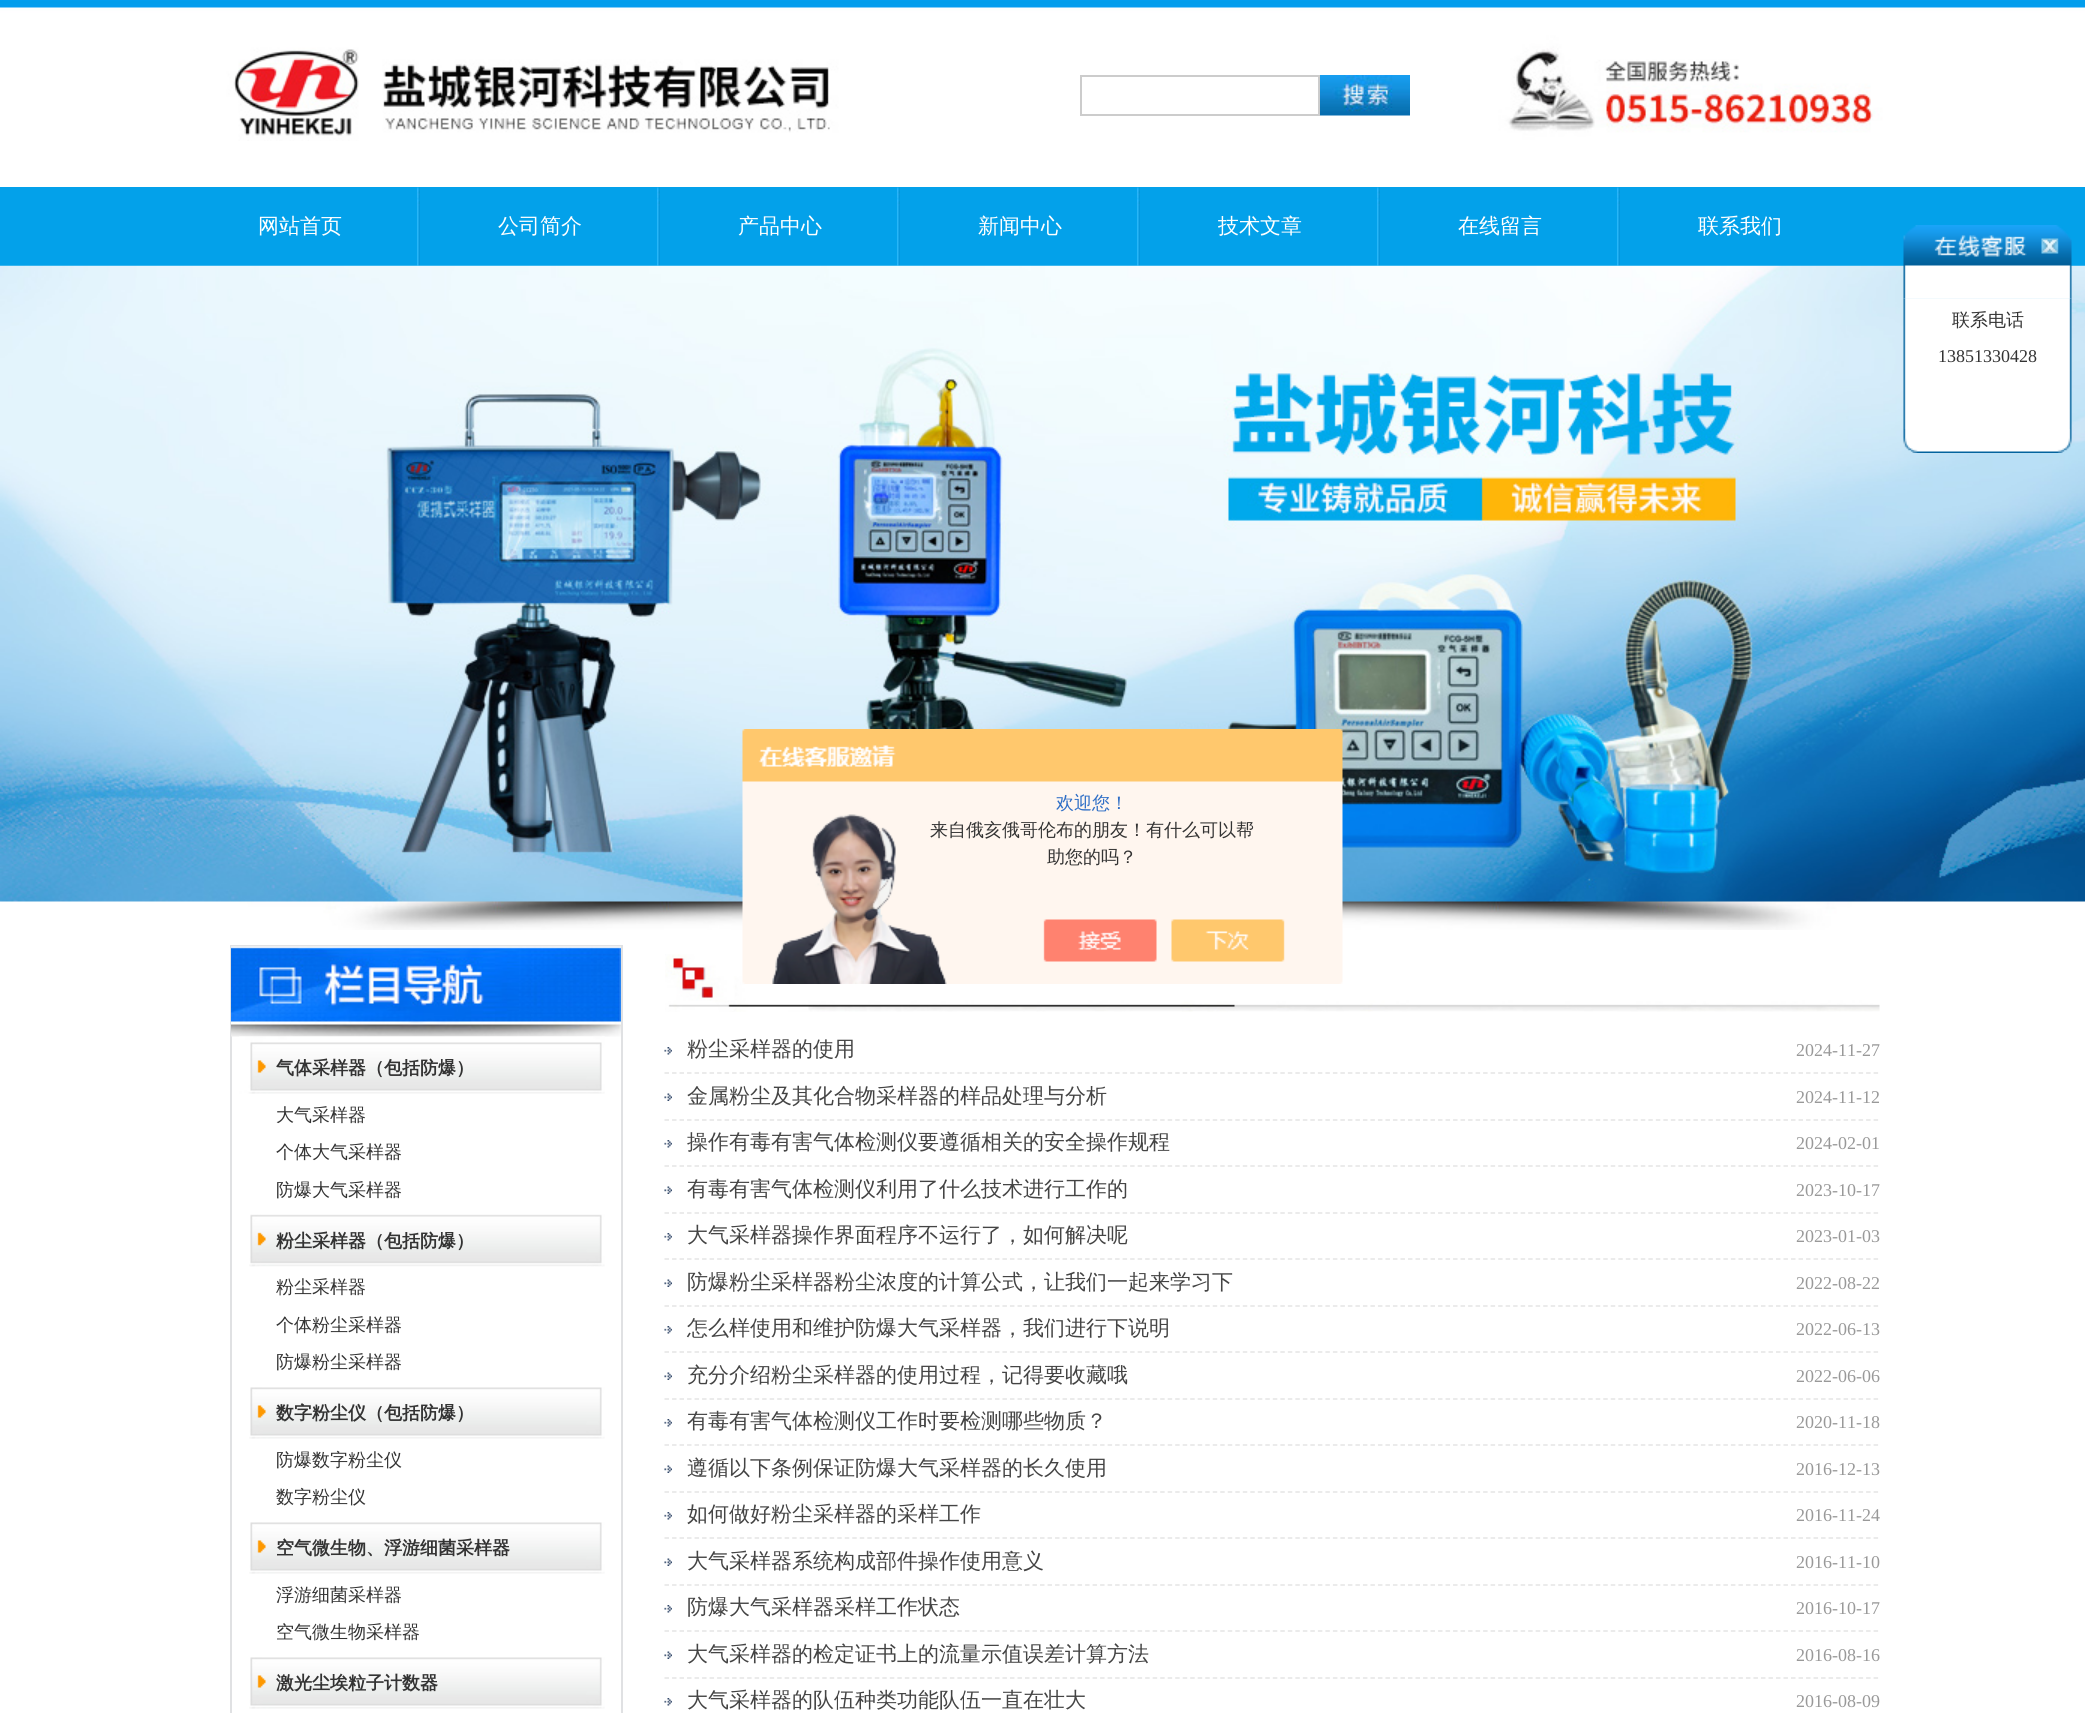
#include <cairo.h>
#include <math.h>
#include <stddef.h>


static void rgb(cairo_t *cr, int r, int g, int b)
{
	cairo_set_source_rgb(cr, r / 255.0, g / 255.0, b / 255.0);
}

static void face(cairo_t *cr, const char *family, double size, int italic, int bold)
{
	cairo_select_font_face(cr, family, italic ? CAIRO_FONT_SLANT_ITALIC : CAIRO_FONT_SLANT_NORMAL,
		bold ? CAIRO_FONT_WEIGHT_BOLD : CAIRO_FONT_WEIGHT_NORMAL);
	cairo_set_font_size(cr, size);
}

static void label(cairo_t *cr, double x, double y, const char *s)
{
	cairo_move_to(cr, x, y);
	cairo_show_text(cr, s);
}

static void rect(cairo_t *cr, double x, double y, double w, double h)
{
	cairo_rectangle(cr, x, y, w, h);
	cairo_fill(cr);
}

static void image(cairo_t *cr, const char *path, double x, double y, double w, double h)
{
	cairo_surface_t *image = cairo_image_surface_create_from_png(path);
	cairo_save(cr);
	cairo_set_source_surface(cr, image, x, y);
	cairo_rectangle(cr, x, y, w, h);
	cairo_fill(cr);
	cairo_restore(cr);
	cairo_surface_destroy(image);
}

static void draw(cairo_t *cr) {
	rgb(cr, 255, 255, 255);
	cairo_paint(cr);
	image(cr, "image0.png", 0, 0, 2085, 141);
	cairo_rectangle(cr, 1081, 76, 238, 39);
	rgb(cr, 204, 204, 204);
	cairo_stroke(cr);
	image(cr, "image1.png", 1320, 75, 90, 41);
	rgb(cr, 3, 161, 234);
	rect(cr, 0, 187, 2085, 79);
	image(cr, "image2.png", 417, 187, 3, 79);
	face(cr, "WenQuanYi Zen Hei Medium", 21, 0, 0);
	rgb(cr, 255, 255, 255);
	label(cr, 258, 233, "网站首页");
	image(cr, "image3.png", 657, 187, 3, 79);
	label(cr, 498, 233, "公司简介");
	image(cr, "image3.png", 897, 187, 3, 79);
	label(cr, 738, 233, "产品中心");
	image(cr, "image2.png", 1137, 187, 3, 79);
	label(cr, 978, 233, "新闻中心");
	image(cr, "image3.png", 1377, 187, 3, 79);
	label(cr, 1218, 233, "技术文章");
	image(cr, "image3.png", 1617, 187, 3, 79);
	label(cr, 1458, 233, "在线留言");
	label(cr, 1698, 233, "联系我们");
	image(cr, "image4.png", 0, 265, 2085, 665);
	image(cr, "image6.png", 1903, 298, 169, 131);
	image(cr, "image5.png", 1903, 225, 169, 74);
	face(cr, "WenQuanYi Zen Hei Medium", 18, 0, 0);
	rgb(cr, 51, 51, 51);
	label(cr, 1952, 326, "联系电话");
	face(cr, "Liberation Serif", 18, 0, 0);
	label(cr, 1938, 362, "13851330428");
	image(cr, "image7.png", 1903, 429, 169, 24);
	image(cr, "image13.png", 665, 954, 1215, 58);
	image(cr, "image8.png", 742, 729, 601, 255);
	face(cr, "WenQuanYi Zen Hei Medium", 18, 0, 0);
	rgb(cr, 46, 110, 198);
	label(cr, 1056, 809, "欢迎您！");
	rgb(cr, 51, 51, 51);
	label(cr, 930, 836, "来自俄亥俄哥伦布的朋友！有什么可以帮");
	label(cr, 1047, 863, "助您的吗？");
	cairo_rectangle(cr, 231, 946, 391, 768);
	rgb(cr, 224, 225, 227);
	cairo_stroke(cr);
	image(cr, "image9.png", 231, 946, 390, 91);
	image(cr, "image10.png", 239, 1036, 366, 58);
	face(cr, "WenQuanYi Zen Hei", 18, 0, 1);
	rgb(cr, 51, 51, 51);
	label(cr, 276, 1074, "气体采样器（包括防爆）");
	face(cr, "WenQuanYi Zen Hei Medium", 18, 0, 0);
	label(cr, 276, 1121, "大气采样器");
	label(cr, 276, 1158, "个体大气采样器");
	label(cr, 276, 1196, "防爆大气采样器");
	image(cr, "image11.png", 249, 1214, 356, 53);
	face(cr, "WenQuanYi Zen Hei", 18, 0, 1);
	label(cr, 276, 1247, "粉尘采样器（包括防爆）");
	face(cr, "WenQuanYi Zen Hei Medium", 18, 0, 0);
	label(cr, 276, 1293, "粉尘采样器");
	label(cr, 276, 1331, "个体粉尘采样器");
	label(cr, 276, 1368, "防爆粉尘采样器");
	image(cr, "image12.png", 249, 1387, 356, 52);
	face(cr, "WenQuanYi Zen Hei", 18, 0, 1);
	label(cr, 276, 1419, "数字粉尘仪（包括防爆）");
	face(cr, "WenQuanYi Zen Hei Medium", 18, 0, 0);
	label(cr, 276, 1466, "防爆数字粉尘仪");
	label(cr, 276, 1503, "数字粉尘仪");
	image(cr, "image12.png", 249, 1522, 356, 52);
	face(cr, "WenQuanYi Zen Hei", 18, 0, 1);
	label(cr, 276, 1554, "空气微生物、浮游细菌采样器");
	face(cr, "WenQuanYi Zen Hei Medium", 18, 0, 0);
	label(cr, 276, 1601, "浮游细菌采样器");
	label(cr, 276, 1638, "空气微生物采样器");
	image(cr, "image12.png", 249, 1657, 356, 52);
	face(cr, "WenQuanYi Zen Hei", 18, 0, 1);
	label(cr, 276, 1689, "激光尘埃粒子计数器");
	image(cr, "image14.png", 664, 1047, 8, 8);
	cairo_new_path(cr);
	cairo_move_to(cr, 664.5, 1073);
	cairo_line_to(cr, 1879.5, 1073);
	rgb(cr, 229, 229, 229);
	cairo_set_line_width(cr, 1.5);
	cairo_set_dash(cr, (double[]){4.5, 3.01}, 2, 0);
	cairo_stroke(cr);
	face(cr, "WenQuanYi Zen Hei Medium", 21, 0, 0);
	rgb(cr, 68, 68, 68);
	label(cr, 687, 1056, "粉尘采样器的使用");
	face(cr, "Liberation Serif", 18, 0, 0);
	rgb(cr, 153, 153, 153);
	label(cr, 1796, 1056, "2024-11-27");
	image(cr, "image15.png", 664, 1093, 8, 8);
	cairo_new_path(cr);
	cairo_move_to(cr, 664.5, 1120);
	cairo_line_to(cr, 1879.5, 1120);
	rgb(cr, 229, 229, 229);
	cairo_stroke(cr);
	face(cr, "WenQuanYi Zen Hei Medium", 21, 0, 0);
	rgb(cr, 68, 68, 68);
	label(cr, 687, 1103, "金属粉尘及其化合物采样器的样品处理与分析");
	face(cr, "Liberation Serif", 18, 0, 0);
	rgb(cr, 153, 153, 153);
	label(cr, 1796, 1103, "2024-11-12");
	image(cr, "image14.png", 664, 1140, 8, 8);
	cairo_new_path(cr);
	cairo_move_to(cr, 664.5, 1166);
	cairo_line_to(cr, 1879.5, 1166);
	rgb(cr, 229, 229, 229);
	cairo_stroke(cr);
	face(cr, "WenQuanYi Zen Hei Medium", 21, 0, 0);
	rgb(cr, 68, 68, 68);
	label(cr, 687, 1149, "操作有毒有害气体检测仪要遵循相关的安全操作规程");
	face(cr, "Liberation Serif", 18, 0, 0);
	rgb(cr, 153, 153, 153);
	label(cr, 1796, 1149, "2024-02-01");
	image(cr, "image15.png", 664, 1186, 8, 8);
	cairo_new_path(cr);
	cairo_move_to(cr, 664.5, 1213);
	cairo_line_to(cr, 1879.5, 1213);
	rgb(cr, 229, 229, 229);
	cairo_stroke(cr);
	face(cr, "WenQuanYi Zen Hei Medium", 21, 0, 0);
	rgb(cr, 68, 68, 68);
	label(cr, 687, 1196, "有毒有害气体检测仪利用了什么技术进行工作的");
	face(cr, "Liberation Serif", 18, 0, 0);
	rgb(cr, 153, 153, 153);
	label(cr, 1796, 1196, "2023-10-17");
	image(cr, "image14.png", 664, 1233, 8, 8);
	cairo_new_path(cr);
	cairo_move_to(cr, 664.5, 1259);
	cairo_line_to(cr, 1879.5, 1259);
	rgb(cr, 229, 229, 229);
	cairo_stroke(cr);
	face(cr, "WenQuanYi Zen Hei Medium", 21, 0, 0);
	rgb(cr, 68, 68, 68);
	label(cr, 687, 1242, "大气采样器操作界面程序不运行了，如何解决呢");
	face(cr, "Liberation Serif", 18, 0, 0);
	rgb(cr, 153, 153, 153);
	label(cr, 1796, 1242, "2023-01-03");
	image(cr, "image15.png", 664, 1279, 8, 8);
	cairo_new_path(cr);
	cairo_move_to(cr, 664.5, 1306);
	cairo_line_to(cr, 1879.5, 1306);
	rgb(cr, 229, 229, 229);
	cairo_stroke(cr);
	face(cr, "WenQuanYi Zen Hei Medium", 21, 0, 0);
	rgb(cr, 68, 68, 68);
	label(cr, 687, 1289, "防爆粉尘采样器粉尘浓度的计算公式，让我们一起来学习下");
	face(cr, "Liberation Serif", 18, 0, 0);
	rgb(cr, 153, 153, 153);
	label(cr, 1796, 1289, "2022-08-22");
	image(cr, "image14.png", 664, 1326, 8, 8);
	cairo_new_path(cr);
	cairo_move_to(cr, 664.5, 1352);
	cairo_line_to(cr, 1879.5, 1352);
	rgb(cr, 229, 229, 229);
	cairo_stroke(cr);
	face(cr, "WenQuanYi Zen Hei Medium", 21, 0, 0);
	rgb(cr, 68, 68, 68);
	label(cr, 687, 1335, "怎么样使用和维护防爆大气采样器，我们进行下说明");
	face(cr, "Liberation Serif", 18, 0, 0);
	rgb(cr, 153, 153, 153);
	label(cr, 1796, 1335, "2022-06-13");
	image(cr, "image15.png", 664, 1372, 8, 8);
	cairo_new_path(cr);
	cairo_move_to(cr, 664.5, 1399);
	cairo_line_to(cr, 1879.5, 1399);
	rgb(cr, 229, 229, 229);
	cairo_stroke(cr);
	face(cr, "WenQuanYi Zen Hei Medium", 21, 0, 0);
	rgb(cr, 68, 68, 68);
	label(cr, 687, 1382, "充分介绍粉尘采样器的使用过程，记得要收藏哦");
	face(cr, "Liberation Serif", 18, 0, 0);
	rgb(cr, 153, 153, 153);
	label(cr, 1796, 1382, "2022-06-06");
	image(cr, "image14.png", 664, 1419, 8, 8);
	cairo_new_path(cr);
	cairo_move_to(cr, 664.5, 1445);
	cairo_line_to(cr, 1879.5, 1445);
	rgb(cr, 229, 229, 229);
	cairo_stroke(cr);
	face(cr, "WenQuanYi Zen Hei Medium", 21, 0, 0);
	rgb(cr, 68, 68, 68);
	label(cr, 687, 1428, "有毒有害气体检测仪工作时要检测哪些物质？");
	face(cr, "Liberation Serif", 18, 0, 0);
	rgb(cr, 153, 153, 153);
	label(cr, 1796, 1428, "2020-11-18");
	image(cr, "image15.png", 664, 1465, 8, 8);
	cairo_new_path(cr);
	cairo_move_to(cr, 664.5, 1492);
	cairo_line_to(cr, 1879.5, 1492);
	rgb(cr, 229, 229, 229);
	cairo_stroke(cr);
	face(cr, "WenQuanYi Zen Hei Medium", 21, 0, 0);
	rgb(cr, 68, 68, 68);
	label(cr, 687, 1475, "遵循以下条例保证防爆大气采样器的长久使用");
	face(cr, "Liberation Serif", 18, 0, 0);
	rgb(cr, 153, 153, 153);
	label(cr, 1796, 1475, "2016-12-13");
	image(cr, "image14.png", 664, 1512, 8, 8);
	cairo_new_path(cr);
	cairo_move_to(cr, 664.5, 1538);
	cairo_line_to(cr, 1879.5, 1538);
	rgb(cr, 229, 229, 229);
	cairo_stroke(cr);
	face(cr, "WenQuanYi Zen Hei Medium", 21, 0, 0);
	rgb(cr, 68, 68, 68);
	label(cr, 687, 1521, "如何做好粉尘采样器的采样工作");
	face(cr, "Liberation Serif", 18, 0, 0);
	rgb(cr, 153, 153, 153);
	label(cr, 1796, 1521, "2016-11-24");
	image(cr, "image15.png", 664, 1558, 8, 8);
	cairo_new_path(cr);
	cairo_move_to(cr, 664.5, 1585);
	cairo_line_to(cr, 1879.5, 1585);
	rgb(cr, 229, 229, 229);
	cairo_stroke(cr);
	face(cr, "WenQuanYi Zen Hei Medium", 21, 0, 0);
	rgb(cr, 68, 68, 68);
	label(cr, 687, 1568, "大气采样器系统构成部件操作使用意义");
	face(cr, "Liberation Serif", 18, 0, 0);
	rgb(cr, 153, 153, 153);
	label(cr, 1796, 1568, "2016-11-10");
	image(cr, "image14.png", 664, 1605, 8, 8);
	cairo_new_path(cr);
	cairo_move_to(cr, 664.5, 1631);
	cairo_line_to(cr, 1879.5, 1631);
	rgb(cr, 229, 229, 229);
	cairo_stroke(cr);
	face(cr, "WenQuanYi Zen Hei Medium", 21, 0, 0);
	rgb(cr, 68, 68, 68);
	label(cr, 687, 1614, "防爆大气采样器采样工作状态");
	face(cr, "Liberation Serif", 18, 0, 0);
	rgb(cr, 153, 153, 153);
	label(cr, 1796, 1614, "2016-10-17");
	image(cr, "image15.png", 664, 1651, 8, 8);
	cairo_new_path(cr);
	cairo_move_to(cr, 664.5, 1678);
	cairo_line_to(cr, 1879.5, 1678);
	rgb(cr, 229, 229, 229);
	cairo_stroke(cr);
	face(cr, "WenQuanYi Zen Hei Medium", 21, 0, 0);
	rgb(cr, 68, 68, 68);
	label(cr, 687, 1661, "大气采样器的检定证书上的流量示值误差计算方法");
	face(cr, "Liberation Serif", 18, 0, 0);
	rgb(cr, 153, 153, 153);
	label(cr, 1796, 1661, "2016-08-16");
	image(cr, "image14.png", 664, 1698, 8, 8);
	face(cr, "WenQuanYi Zen Hei Medium", 21, 0, 0);
	rgb(cr, 68, 68, 68);
	label(cr, 687, 1707, "大气采样器的队伍种类功能队伍一直在壮大");
	face(cr, "Liberation Serif", 18, 0, 0);
	rgb(cr, 153, 153, 153);
	label(cr, 1796, 1707, "2016-08-09");
}

int main(void) {
	cairo_surface_t *surface = cairo_image_surface_create(CAIRO_FORMAT_RGB24, 2085, 1713);
	cairo_t *cr = cairo_create(surface);
	cairo_font_options_t *options = cairo_font_options_create();
	cairo_font_options_set_hint_metrics(options, CAIRO_HINT_METRICS_OFF);
	cairo_font_options_set_hint_style(options, CAIRO_HINT_STYLE_NONE);
	cairo_set_font_options(cr, options);
	cairo_set_miter_limit(cr, 4);
	draw(cr);
	cairo_surface_write_to_png(surface, "render.png");
	cairo_font_options_destroy(options);
	cairo_destroy(cr);
	cairo_surface_destroy(surface);
	return 0;
}
